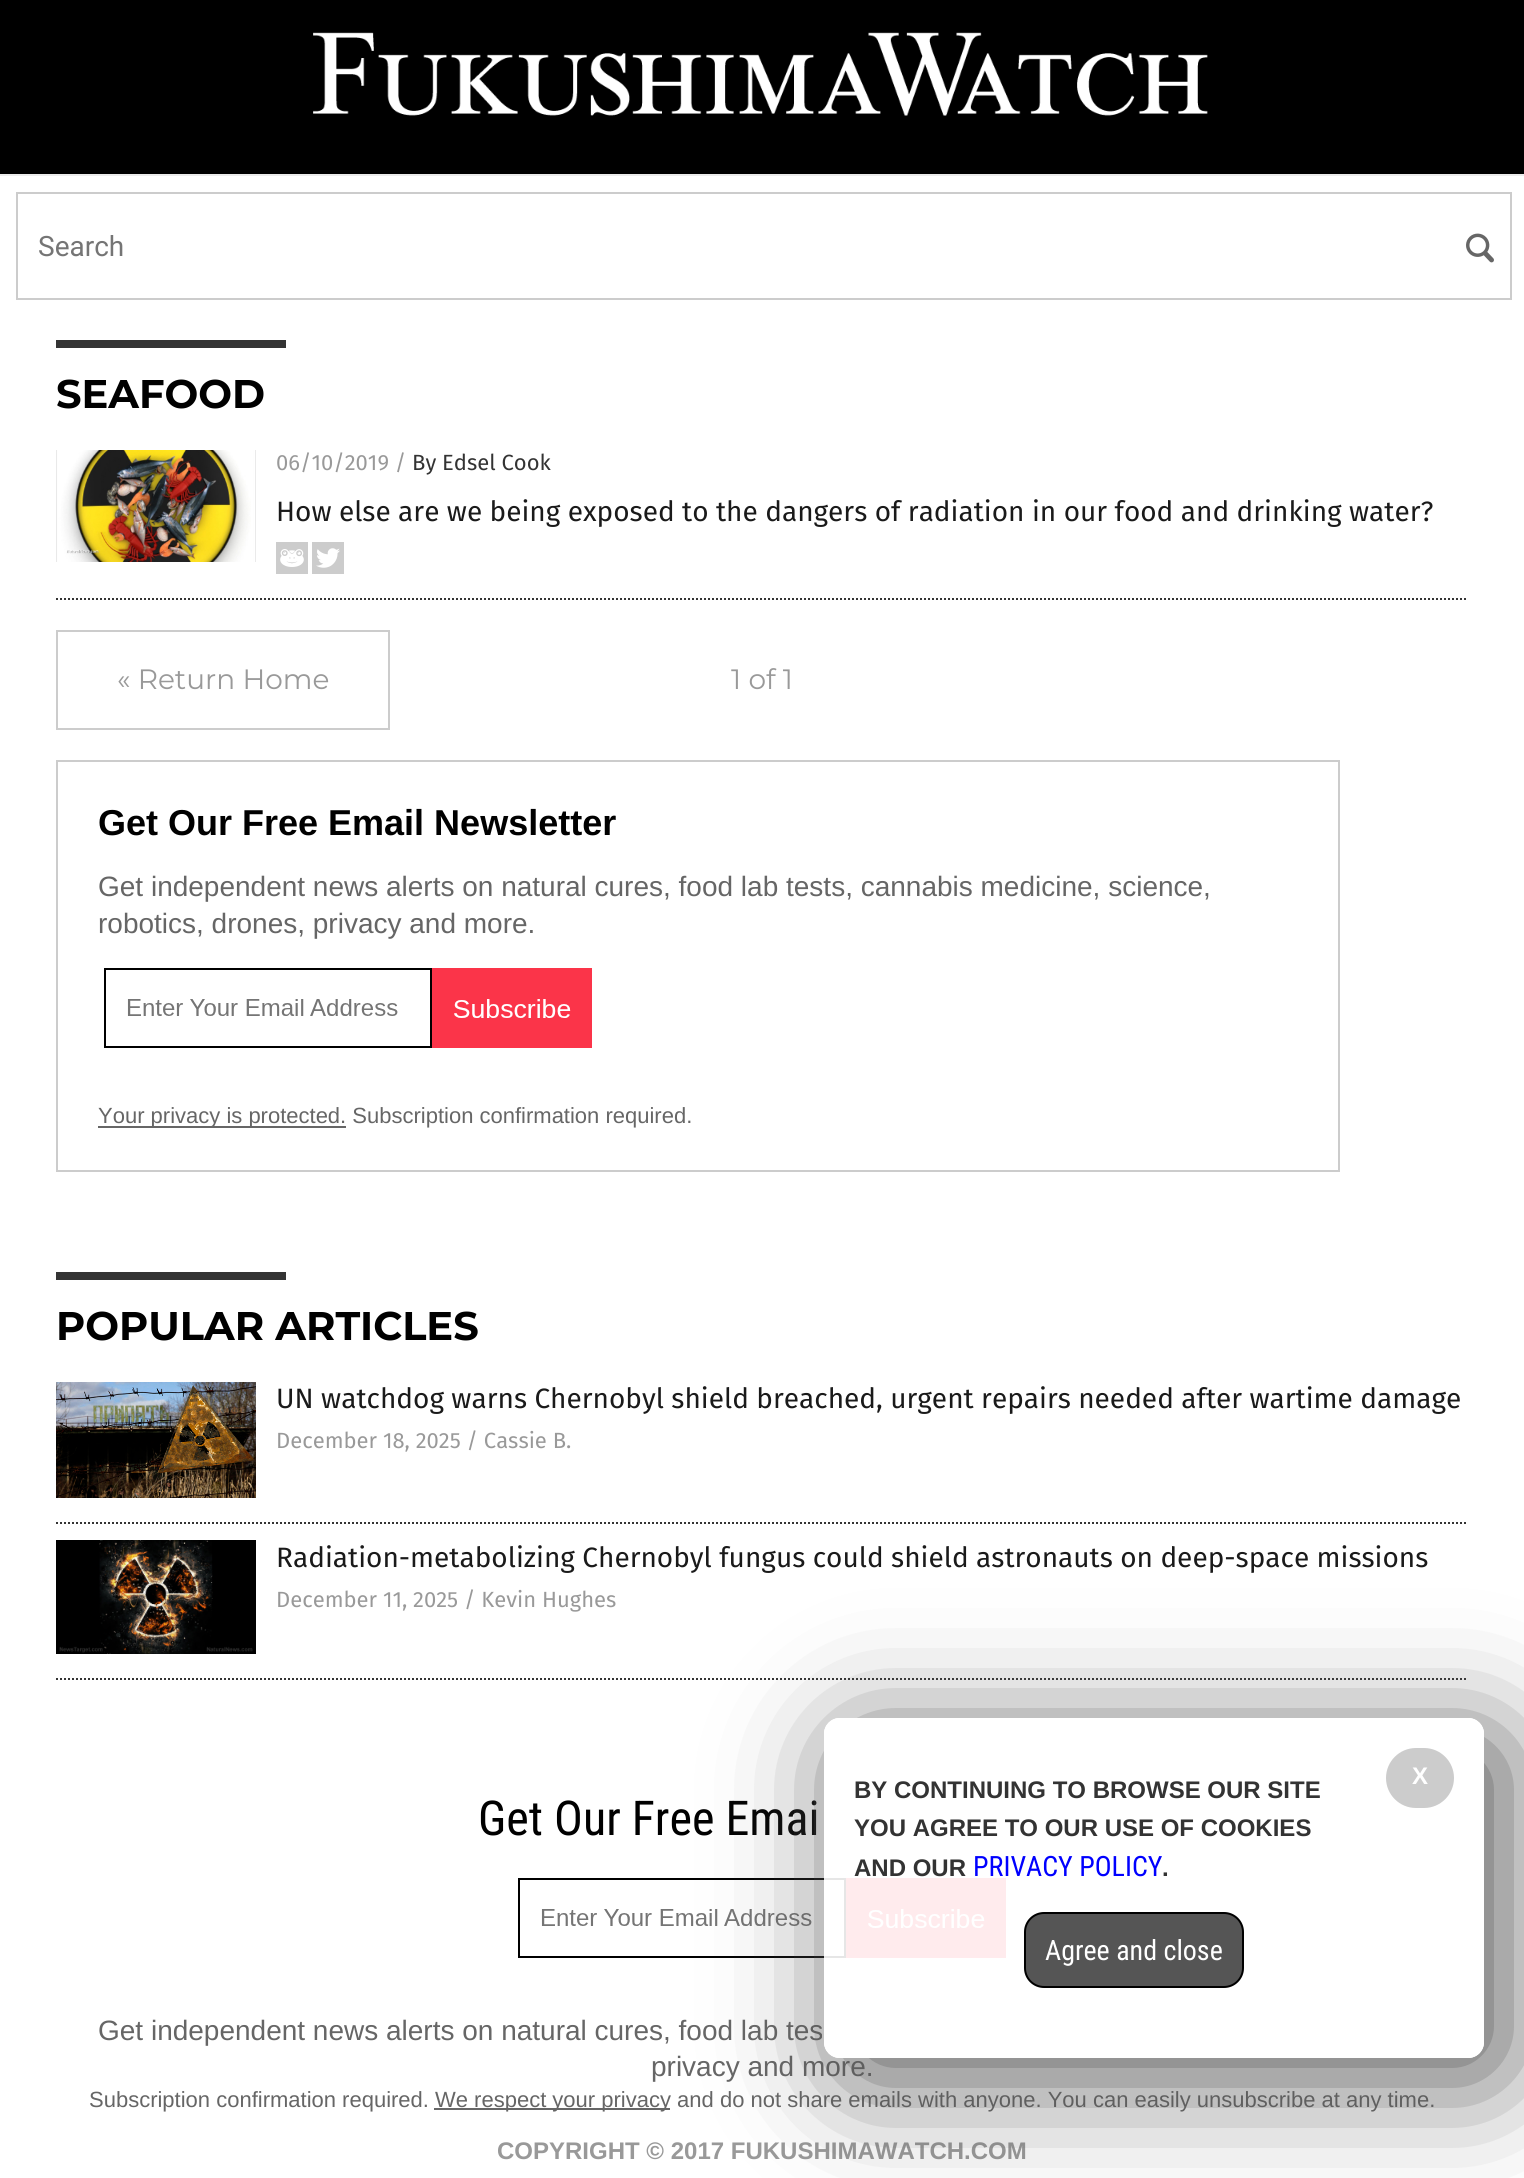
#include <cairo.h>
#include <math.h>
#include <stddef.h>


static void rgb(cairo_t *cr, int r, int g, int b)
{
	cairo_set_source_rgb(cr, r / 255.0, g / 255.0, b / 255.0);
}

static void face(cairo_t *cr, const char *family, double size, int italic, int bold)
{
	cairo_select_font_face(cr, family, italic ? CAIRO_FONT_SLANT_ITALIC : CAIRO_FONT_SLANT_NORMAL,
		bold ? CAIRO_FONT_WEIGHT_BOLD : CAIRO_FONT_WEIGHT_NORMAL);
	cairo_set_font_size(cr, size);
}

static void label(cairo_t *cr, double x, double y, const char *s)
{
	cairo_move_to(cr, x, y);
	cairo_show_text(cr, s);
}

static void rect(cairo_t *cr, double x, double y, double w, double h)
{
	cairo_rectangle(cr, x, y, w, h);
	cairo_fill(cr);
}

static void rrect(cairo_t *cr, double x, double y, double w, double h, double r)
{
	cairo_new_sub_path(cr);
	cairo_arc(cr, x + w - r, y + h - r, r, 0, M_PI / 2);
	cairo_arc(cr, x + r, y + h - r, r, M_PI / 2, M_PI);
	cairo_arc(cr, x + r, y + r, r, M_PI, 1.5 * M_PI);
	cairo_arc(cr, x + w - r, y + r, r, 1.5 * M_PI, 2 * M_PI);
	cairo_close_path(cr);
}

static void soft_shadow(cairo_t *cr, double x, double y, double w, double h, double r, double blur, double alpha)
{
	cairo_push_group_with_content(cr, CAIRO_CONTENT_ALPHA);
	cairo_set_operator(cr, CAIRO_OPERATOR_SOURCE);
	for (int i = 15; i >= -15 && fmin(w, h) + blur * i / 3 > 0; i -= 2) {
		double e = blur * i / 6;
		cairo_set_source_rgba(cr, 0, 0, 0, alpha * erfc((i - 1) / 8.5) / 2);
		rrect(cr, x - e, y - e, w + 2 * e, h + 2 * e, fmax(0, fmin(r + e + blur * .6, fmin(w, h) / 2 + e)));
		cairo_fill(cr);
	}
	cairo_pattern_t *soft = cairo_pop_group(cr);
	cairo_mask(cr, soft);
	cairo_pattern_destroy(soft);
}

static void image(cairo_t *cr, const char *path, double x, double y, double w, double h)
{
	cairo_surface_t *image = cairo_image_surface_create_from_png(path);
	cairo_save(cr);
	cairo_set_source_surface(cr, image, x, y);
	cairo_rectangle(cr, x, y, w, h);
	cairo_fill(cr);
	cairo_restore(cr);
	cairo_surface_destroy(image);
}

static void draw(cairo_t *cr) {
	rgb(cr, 0, 0, 0);
	cairo_paint(cr);
	image(cr, "image0.png", 313, 32, 895, 84);
	rgb(cr, 255, 255, 255);
	rect(cr, 0, 176, 1524, 2002);
	rgb(cr, 236, 236, 236);
	rect(cr, 0, 174, 1524, 2);
	cairo_rectangle(cr, 17, 193, 1494, 106);
	rgb(cr, 204, 204, 204);
	cairo_stroke(cr);
	face(cr, "Roboto", 28, 0, 0);
	rgb(cr, 117, 117, 117);
	label(cr, 38, 256, "Search");
	image(cr, "image1.png", 1466, 233, 28, 30);
	rgb(cr, 52, 52, 52);
	rect(cr, 56, 340, 230, 8);
	face(cr, "Montserrat", 40, 0, 1);
	rgb(cr, 0, 0, 0);
	label(cr, 56, 408, "SEAFOOD");
	cairo_new_path(cr);
	cairo_move_to(cr, 56, 599);
	cairo_line_to(cr, 1468, 599);
	rgb(cr, 52, 52, 52);
	cairo_set_dash(cr, (double[]){2, 2}, 2, 0);
	cairo_stroke(cr);
	image(cr, "image2.png", 56, 450, 200, 112);
	face(cr, "Fira Sans", 22, 0, 0);
	rgb(cr, 153, 153, 153);
	label(cr, 276, 470, "06/10/2019 /");
	rgb(cr, 51, 51, 51);
	label(cr, 412, 470, "By Edsel Cook");
	face(cr, "Fira Sans", 28, 0, 0);
	rgb(cr, 26, 26, 26);
	label(cr, 276, 521, "How else are we being exposed to the dangers of radiation in our food and drinking water?");
	image(cr, "image3.png", 276, 542, 32, 32);
	image(cr, "image4.png", 312, 542, 32, 32);
	cairo_rectangle(cr, 57, 631, 332, 98);
	rgb(cr, 204, 204, 204);
	cairo_set_dash(cr, NULL, 0, 0);
	cairo_stroke(cr);
	face(cr, "Montserrat", 28, 0, 0);
	rgb(cr, 153, 153, 153);
	label(cr, 117, 689, "« Return Home");
	label(cr, 731, 689, "1 of 1");
	cairo_rectangle(cr, 57, 761, 1282, 410);
	rgb(cr, 204, 204, 204);
	cairo_stroke(cr);
	face(cr, "Liberation Sans", 36, 0, 1);
	rgb(cr, 0, 0, 0);
	label(cr, 98, 835, "Get Our Free Email Newsletter");
	face(cr, "Liberation Sans", 28, 0, 0);
	rgb(cr, 102, 102, 102);
	label(cr, 98, 896, "Get independent news alerts on natural cures, food lab tests, cannabis medicine, science,");
	label(cr, 98, 933, "robotics, drones, privacy and more.");
	image(cr, "image5.png", 104, 968, 488, 80);
	rect(cr, 98, 1126, 248, 2);
	face(cr, "Liberation Sans", 22, 0, 0);
	label(cr, 98, 1123, "Your privacy is protected. Subscription confirmation required.");
	rgb(cr, 52, 52, 52);
	rect(cr, 56, 1272, 230, 8);
	face(cr, "Montserrat", 40, 0, 1);
	rgb(cr, 0, 0, 0);
	label(cr, 56, 1340, "POPULAR ARTICLES");
	cairo_new_path(cr);
	cairo_move_to(cr, 56, 1523);
	cairo_line_to(cr, 1468, 1523);
	rgb(cr, 52, 52, 52);
	cairo_set_dash(cr, (double[]){2, 2}, 2, 0);
	cairo_stroke(cr);
	image(cr, "image6.png", 56, 1382, 200, 116);
	face(cr, "Fira Sans", 28, 0, 0);
	rgb(cr, 26, 26, 26);
	label(cr, 276, 1408, "UN watchdog warns Chernobyl shield breached, urgent repairs needed after wartime damage");
	face(cr, "Fira Sans", 22, 0, 0);
	rgb(cr, 153, 153, 153);
	label(cr, 276, 1448, "December 18, 2025 / Cassie B.");
	cairo_new_path(cr);
	cairo_move_to(cr, 56, 1679);
	cairo_line_to(cr, 1468, 1679);
	rgb(cr, 52, 52, 52);
	cairo_stroke(cr);
	image(cr, "image7.png", 56, 1540, 200, 114);
	face(cr, "Fira Sans", 28, 0, 0);
	rgb(cr, 26, 26, 26);
	label(cr, 276, 1567, "Radiation-metabolizing Chernobyl fungus could shield astronauts on deep-space missions");
	face(cr, "Fira Sans", 22, 0, 0);
	rgb(cr, 153, 153, 153);
	label(cr, 276, 1607, "December 11, 2025 / Kevin Hughes");
	face(cr, "Roboto Condensed", 48, 0, 0);
	rgb(cr, 0, 0, 0);
	label(cr, 478, 1835, "Get Our Free Emai");
	image(cr, "image5.png", 518, 1878, 488, 80);
	face(cr, "Liberation Sans", 28, 0, 0);
	rgb(cr, 102, 102, 102);
	label(cr, 98, 2040, "Get independent news alerts on natural cures, food lab tes");
	label(cr, 651, 2076, "privacy and more.");
	face(cr, "Liberation Sans", 22, 0, 0);
	label(cr, 89, 2107, "Subscription confirmation required.");
	rect(cr, 434, 2108, 236, 2);
	label(cr, 435, 2107, "We respect your privacy and do not share emails with anyone. You can easily unsubscribe at any time.");
	face(cr, "Liberation Sans", 24, 0, 1);
	rgb(cr, 153, 153, 153);
	label(cr, 497, 2159, "COPYRIGHT © 2017 FUKUSHIMAWATCH.COM");
	cairo_save(cr);
	cairo_set_fill_rule(cr, CAIRO_FILL_RULE_EVEN_ODD);
	cairo_new_path(cr);
	cairo_move_to(cr, 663, 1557);
	cairo_line_to(cr, 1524, 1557);
	cairo_line_to(cr, 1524, 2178);
	cairo_line_to(cr, 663, 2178);
	cairo_close_path(cr);
	cairo_move_to(cr, 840, 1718);
	cairo_line_to(cr, 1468, 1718);
	cairo_curve_to(cr, 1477, 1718, 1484, 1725, 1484, 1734);
	cairo_line_to(cr, 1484, 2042);
	cairo_curve_to(cr, 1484, 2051, 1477, 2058, 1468, 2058);
	cairo_line_to(cr, 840, 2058);
	cairo_curve_to(cr, 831, 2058, 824, 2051, 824, 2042);
	cairo_line_to(cr, 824, 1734);
	cairo_curve_to(cr, 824, 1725, 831, 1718, 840, 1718);
	cairo_close_path(cr);
	cairo_clip(cr);
	rgb(cr, 85, 85, 85);
	soft_shadow(cr, 844, 1738, 660, 340, 16, 60, 1);
	cairo_restore(cr);
	cairo_set_source_rgba(cr, 1, 1, 1, 0.9);
	rrect(cr, 824, 1718, 660, 340, 16);
	cairo_fill(cr);
	rgb(cr, 204, 204, 204);
	rrect(cr, 1386, 1748, 68, 60, 30);
	cairo_fill(cr);
	rgb(cr, 255, 255, 255);
	label(cr, 1412, 1784, "X");
	rgb(cr, 51, 51, 51);
	label(cr, 854, 1798, "BY CONTINUING TO BROWSE OUR SITE");
	label(cr, 854, 1836, "YOU AGREE TO OUR USE OF COOKIES");
	label(cr, 854, 1876, "AND OUR");
	face(cr, "Roboto Condensed", 28, 0, 0);
	rgb(cr, 0, 0, 255);
	label(cr, 973, 1876, "PRIVACY POLICY");
	face(cr, "Liberation Sans", 24, 0, 1);
	rgb(cr, 51, 51, 51);
	label(cr, 1162, 1876, ".");
	rgb(cr, 85, 85, 85);
	rrect(cr, 1025, 1913, 218, 74, 19);
	cairo_fill_preserve(cr);
	rgb(cr, 0, 0, 0);
	cairo_set_dash(cr, NULL, 0, 0);
	cairo_stroke(cr);
	face(cr, "Roboto Condensed", 28, 0, 0);
	rgb(cr, 255, 255, 255);
	label(cr, 1045, 1960, "Agree and close");
}

int main(void) {
	cairo_surface_t *surface = cairo_image_surface_create(CAIRO_FORMAT_RGB24, 1524, 2178);
	cairo_t *cr = cairo_create(surface);
	cairo_font_options_t *options = cairo_font_options_create();
	cairo_font_options_set_hint_metrics(options, CAIRO_HINT_METRICS_OFF);
	cairo_font_options_set_hint_style(options, CAIRO_HINT_STYLE_NONE);
	cairo_set_font_options(cr, options);
	cairo_set_miter_limit(cr, 4);
	draw(cr);
	cairo_surface_write_to_png(surface, "render.png");
	cairo_font_options_destroy(options);
	cairo_destroy(cr);
	cairo_surface_destroy(surface);
	return 0;
}
